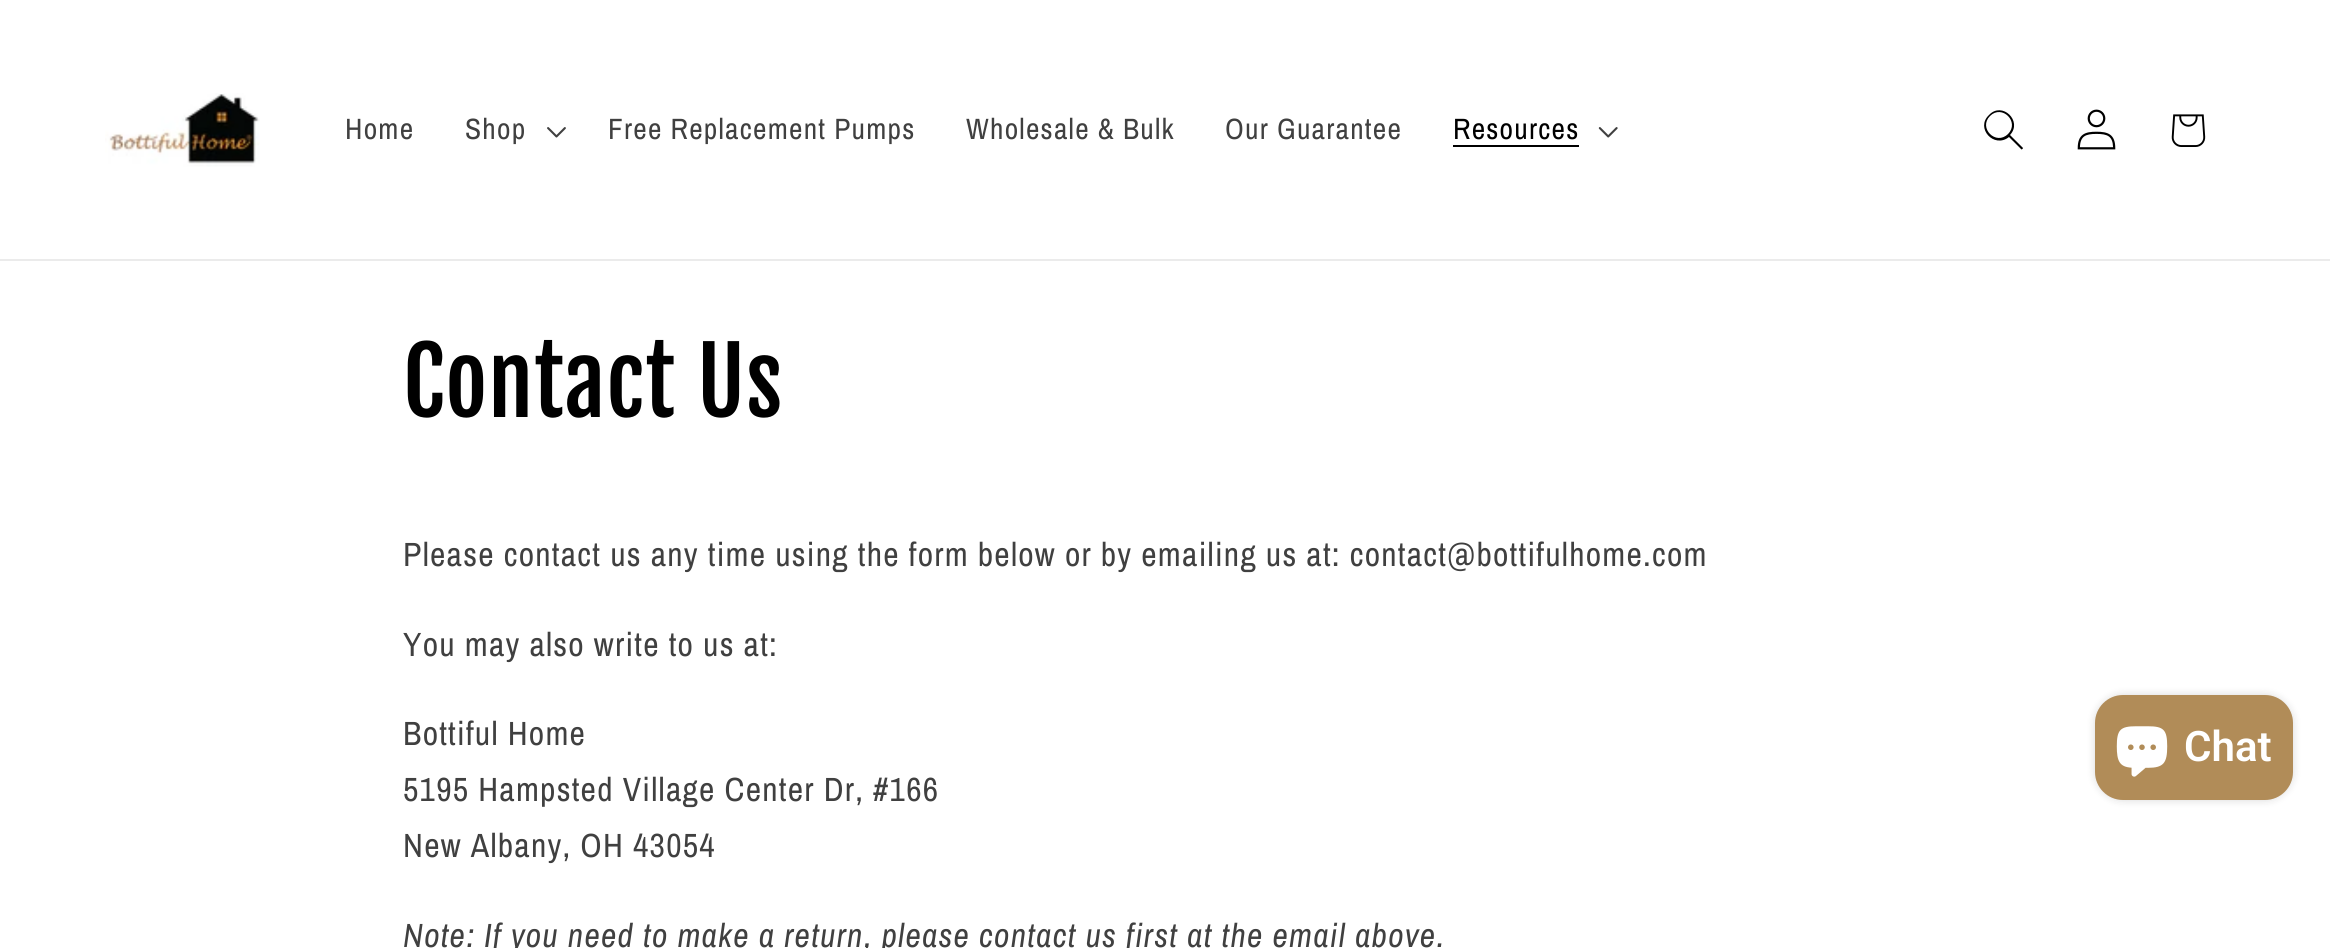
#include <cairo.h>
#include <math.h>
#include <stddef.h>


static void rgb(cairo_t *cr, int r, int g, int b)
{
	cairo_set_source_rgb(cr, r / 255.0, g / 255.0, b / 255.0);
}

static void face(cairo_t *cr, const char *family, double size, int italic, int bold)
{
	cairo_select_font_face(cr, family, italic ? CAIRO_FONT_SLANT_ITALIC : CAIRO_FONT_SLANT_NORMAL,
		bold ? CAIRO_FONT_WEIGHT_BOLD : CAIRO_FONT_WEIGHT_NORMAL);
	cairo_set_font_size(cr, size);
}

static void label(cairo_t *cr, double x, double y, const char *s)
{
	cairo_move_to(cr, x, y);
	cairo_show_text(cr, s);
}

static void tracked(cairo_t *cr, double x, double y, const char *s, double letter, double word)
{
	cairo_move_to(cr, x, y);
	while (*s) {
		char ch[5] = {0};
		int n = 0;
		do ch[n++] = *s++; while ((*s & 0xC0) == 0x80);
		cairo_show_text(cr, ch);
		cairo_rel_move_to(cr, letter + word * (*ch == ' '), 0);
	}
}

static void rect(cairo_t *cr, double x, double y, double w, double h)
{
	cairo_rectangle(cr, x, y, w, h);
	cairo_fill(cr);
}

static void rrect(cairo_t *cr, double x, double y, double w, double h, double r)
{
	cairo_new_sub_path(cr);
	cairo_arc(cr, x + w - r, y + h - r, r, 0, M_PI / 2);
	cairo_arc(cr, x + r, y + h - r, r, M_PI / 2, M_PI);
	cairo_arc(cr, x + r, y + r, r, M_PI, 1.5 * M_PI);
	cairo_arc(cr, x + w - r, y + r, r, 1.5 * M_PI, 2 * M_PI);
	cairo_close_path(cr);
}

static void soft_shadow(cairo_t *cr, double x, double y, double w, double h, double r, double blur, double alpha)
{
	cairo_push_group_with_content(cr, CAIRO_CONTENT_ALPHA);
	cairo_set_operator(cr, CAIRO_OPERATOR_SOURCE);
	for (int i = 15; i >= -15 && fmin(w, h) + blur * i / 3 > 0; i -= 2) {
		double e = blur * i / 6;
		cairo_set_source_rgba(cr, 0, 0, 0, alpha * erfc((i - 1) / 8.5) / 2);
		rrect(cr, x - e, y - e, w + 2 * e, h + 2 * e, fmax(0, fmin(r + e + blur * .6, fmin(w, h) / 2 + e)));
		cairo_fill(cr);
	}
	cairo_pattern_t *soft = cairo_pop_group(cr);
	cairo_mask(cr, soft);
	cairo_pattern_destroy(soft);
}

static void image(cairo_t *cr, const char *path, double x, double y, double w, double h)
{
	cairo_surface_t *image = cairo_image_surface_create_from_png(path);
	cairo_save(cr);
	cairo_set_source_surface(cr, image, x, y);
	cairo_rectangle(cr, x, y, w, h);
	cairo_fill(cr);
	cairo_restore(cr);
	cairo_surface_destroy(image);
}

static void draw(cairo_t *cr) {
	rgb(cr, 255, 255, 255);
	cairo_paint(cr);
	rgb(cr, 235, 235, 235);
	rect(cr, 0, 259, 2330, 2);
	image(cr, "image0.png", 105, 93, 155, 74);
	face(cr, "Archivo Narrow", 29.4, 0, 0);
	rgb(cr, 64, 64, 64);
	tracked(cr, 345, 139, "Home", 1.25, 0);
	tracked(cr, 465, 139, "Shop", 1.25, 0);
	image(cr, "image1.png", 547, 127, 19, 11);
	tracked(cr, 608, 139, "Free Replacement Pumps", 1.25, 0);
	tracked(cr, 966, 139, "Wholesale & Bulk", 1.25, 0);
	tracked(cr, 1225, 139, "Our Guarantee", 1.25, 0);
	rgb(cr, 0, 0, 0);
	tracked(cr, 1453, 139, "Resources", 1.25, 0);
	rect(cr, 1453, 145, 126, 2);
	image(cr, "image2.png", 1598, 127, 20, 11);
	cairo_set_fill_rule(cr, CAIRO_FILL_RULE_EVEN_ODD);
	cairo_new_path(cr);
	cairo_move_to(cr, 2008, 134);
	cairo_curve_to(cr, 1996, 146, 1978, 128, 1990, 116);
	cairo_curve_to(cr, 2002, 104, 2020, 122, 2008, 134);
	cairo_move_to(cr, 2009, 137);
	cairo_curve_to(cr, 1994, 149, 1975, 128, 1989, 115);
	cairo_curve_to(cr, 2002, 101, 2023, 121, 2010, 135);
	cairo_line_to(cr, 2023, 148);
	cairo_curve_to(cr, 2023, 149, 2021, 150, 2021, 149);
	cairo_close_path(cr);
	cairo_fill(cr);
	image(cr, "image3.png", 2077, 109, 39, 41);
	image(cr, "image4.png", 2171, 114, 35, 33);
	face(cr, "Fjalla One", 91, 0, 0);
	tracked(cr, 403, 417, "Contact Us", 1, 0);
	face(cr, "Archivo Narrow", 33.6, 0, 0);
	rgb(cr, 64, 64, 64);
	tracked(cr, 403, 566, "Please contact us any time using the form below or by emailing us at: contact@bottifulhome.com", 1.25, 0);
	tracked(cr, 403, 656, "You may also write to us at:", 1.25, 0);
	tracked(cr, 403, 745, "Bottiful Home", 1.25, 0);
	tracked(cr, 403, 801, "5195 Hampsted Village Center Dr, #166", 1.25, 0);
	tracked(cr, 403, 857, "New Albany, OH 43054", 1.25, 0);
	face(cr, "Archivo Narrow", 33.6, 1, 0);
	tracked(cr, 403, 947, "Note: If you need to make a return, please contact us first at the email above.", 1.25, 0);
	rgb(cr, 0, 0, 0);
	soft_shadow(cr, 2095, 695, 198, 105, 28, 4.5, 0.15);
	rgb(cr, 177, 140, 88);
	rrect(cr, 2095, 695, 198, 105, 28);
	cairo_fill(cr);
	image(cr, "image5.png", 2116, 726, 52, 51);
	face(cr, "Roboto SemiBold", 42, 0, 0);
	rgb(cr, 255, 255, 255);
	label(cr, 2184, 761, "Chat");
}

int main(void) {
	cairo_surface_t *surface = cairo_image_surface_create(CAIRO_FORMAT_RGB24, 2330, 948);
	cairo_t *cr = cairo_create(surface);
	cairo_font_options_t *options = cairo_font_options_create();
	cairo_font_options_set_hint_metrics(options, CAIRO_HINT_METRICS_OFF);
	cairo_font_options_set_hint_style(options, CAIRO_HINT_STYLE_NONE);
	cairo_set_font_options(cr, options);
	cairo_set_miter_limit(cr, 4);
	draw(cr);
	cairo_surface_write_to_png(surface, "render.png");
	cairo_font_options_destroy(options);
	cairo_destroy(cr);
	cairo_surface_destroy(surface);
	return 0;
}
